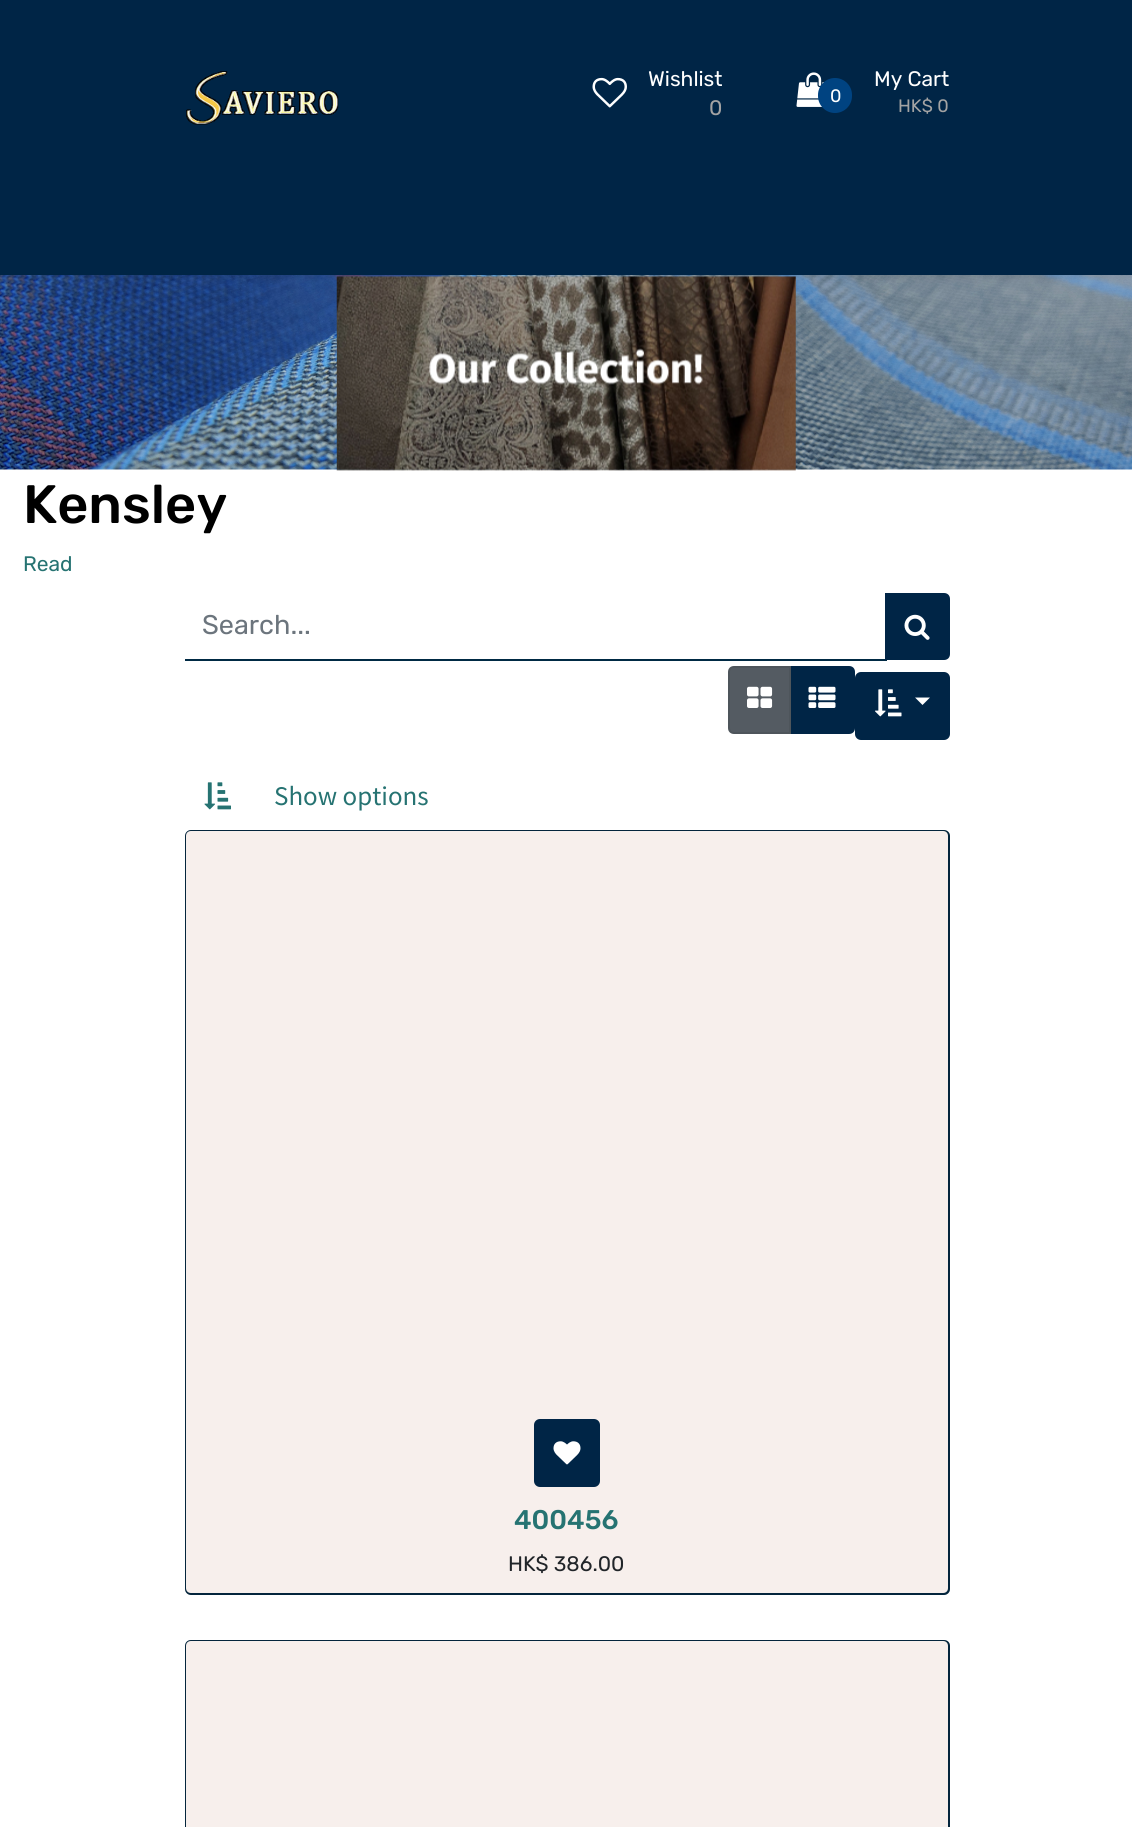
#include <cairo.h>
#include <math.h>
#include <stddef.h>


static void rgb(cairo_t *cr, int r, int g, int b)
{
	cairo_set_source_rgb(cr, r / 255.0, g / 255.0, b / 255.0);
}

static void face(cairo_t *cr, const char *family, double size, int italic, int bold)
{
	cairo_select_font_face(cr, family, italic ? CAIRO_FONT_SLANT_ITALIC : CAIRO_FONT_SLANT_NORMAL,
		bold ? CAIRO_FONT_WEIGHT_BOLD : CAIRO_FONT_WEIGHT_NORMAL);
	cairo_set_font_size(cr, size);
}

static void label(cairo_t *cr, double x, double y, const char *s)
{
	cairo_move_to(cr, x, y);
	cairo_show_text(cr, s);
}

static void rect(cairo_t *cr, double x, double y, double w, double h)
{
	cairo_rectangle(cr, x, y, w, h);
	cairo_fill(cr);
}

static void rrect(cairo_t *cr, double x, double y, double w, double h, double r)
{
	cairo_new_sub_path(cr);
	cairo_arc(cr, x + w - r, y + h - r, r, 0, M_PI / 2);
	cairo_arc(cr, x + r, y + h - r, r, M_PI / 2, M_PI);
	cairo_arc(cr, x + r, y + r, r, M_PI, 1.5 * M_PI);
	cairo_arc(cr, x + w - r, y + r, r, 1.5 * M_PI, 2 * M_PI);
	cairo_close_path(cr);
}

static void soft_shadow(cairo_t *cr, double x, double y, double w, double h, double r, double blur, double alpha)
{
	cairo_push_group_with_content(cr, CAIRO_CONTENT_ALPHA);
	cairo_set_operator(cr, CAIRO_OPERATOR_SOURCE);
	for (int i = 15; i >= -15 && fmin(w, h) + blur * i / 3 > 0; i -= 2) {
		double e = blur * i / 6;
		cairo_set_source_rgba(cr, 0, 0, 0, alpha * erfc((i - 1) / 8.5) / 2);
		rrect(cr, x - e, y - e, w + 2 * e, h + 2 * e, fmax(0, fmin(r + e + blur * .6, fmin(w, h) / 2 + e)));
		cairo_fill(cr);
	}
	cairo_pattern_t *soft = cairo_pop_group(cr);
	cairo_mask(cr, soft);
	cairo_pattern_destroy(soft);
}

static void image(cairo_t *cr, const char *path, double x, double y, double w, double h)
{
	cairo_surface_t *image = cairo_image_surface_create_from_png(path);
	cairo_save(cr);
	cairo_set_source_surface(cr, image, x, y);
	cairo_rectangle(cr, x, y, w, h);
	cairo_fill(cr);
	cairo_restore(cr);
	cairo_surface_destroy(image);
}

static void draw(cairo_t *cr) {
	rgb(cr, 255, 255, 255);
	cairo_paint(cr);
	image(cr, "image3.png", 0, 275, 1132, 195);
	image(cr, "image4.png", 336, 276, 460, 195);
	rgb(cr, 0, 0, 0);
	soft_shadow(cr, 0, 191, 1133, 87, 0, 3, 0.07);
	rgb(cr, 0, 37, 70);
	rect(cr, 0, 0, 1132, 275);
	image(cr, "image0.png", 186, 71, 153, 54);
	image(cr, "image1.png", 592, 77, 35, 31);
	face(cr, "Rubik", 21, 0, 0);
	rgb(cr, 255, 255, 255);
	label(cr, 648, 86, "Wishlist");
	rgb(cr, 163, 163, 163);
	label(cr, 709, 115, "0");
	image(cr, "image2.png", 796, 72, 28, 35);
	rgb(cr, 0, 67, 129);
	rrect(cr, 818, 78, 34, 35, 17);
	cairo_fill(cr);
	face(cr, "Rubik", 18, 0, 0);
	rgb(cr, 255, 255, 255);
	label(cr, 830, 102, "0");
	face(cr, "Rubik", 21, 0, 0);
	label(cr, 874, 86, "My Cart");
	face(cr, "Rubik", 18, 0, 0);
	rgb(cr, 163, 163, 163);
	label(cr, 898, 112, "HK$ 0");
	face(cr, "Rubik Medium", 54, 0, 0);
	rgb(cr, 0, 0, 0);
	label(cr, 23, 523, "Kensley");
	face(cr, "Rubik", 21, 0, 0);
	rgb(cr, 38, 115, 114);
	label(cr, 23, 571, "Read");
	rgb(cr, 0, 42, 68);
	rect(cr, 185, 659, 702, 2);
	face(cr, "Rubik", 27, 0, 0);
	rgb(cr, 108, 117, 125);
	label(cr, 202, 634, "Search...");
	rgb(cr, 0, 37, 70);
	cairo_new_path(cr);
	cairo_move_to(cr, 886, 594);
	cairo_line_to(cr, 944, 594);
	cairo_curve_to(cr, 947, 594, 949, 596, 949, 599);
	cairo_line_to(cr, 949, 654);
	cairo_curve_to(cr, 949, 657, 947, 659, 944, 659);
	cairo_line_to(cr, 886, 659);
	cairo_close_path(cr);
	cairo_fill_preserve(cr);
	cairo_stroke(cr);
	image(cr, "image5.png", 904, 614, 26, 26);
	cairo_new_path(cr);
	cairo_move_to(cr, 790, 667);
	cairo_line_to(cr, 849, 667);
	cairo_curve_to(cr, 852, 667, 854, 669, 854, 672);
	cairo_line_to(cr, 854, 728);
	cairo_curve_to(cr, 854, 731, 852, 733, 849, 733);
	cairo_line_to(cr, 790, 733);
	cairo_close_path(cr);
	cairo_fill_preserve(cr);
	cairo_stroke(cr);
	rgb(cr, 84, 91, 98);
	cairo_new_path(cr);
	cairo_move_to(cr, 734, 667);
	cairo_line_to(cr, 790, 667);
	cairo_line_to(cr, 790, 733);
	cairo_line_to(cr, 734, 733);
	cairo_curve_to(cr, 731, 733, 729, 731, 729, 728);
	cairo_line_to(cr, 729, 672);
	cairo_curve_to(cr, 729, 669, 731, 667, 734, 667);
	cairo_close_path(cr);
	cairo_fill_preserve(cr);
	rgb(cr, 78, 85, 91);
	cairo_stroke(cr);
	image(cr, "image6.png", 747, 686, 26, 22);
	image(cr, "image7.png", 808, 686, 28, 22);
	rgb(cr, 0, 37, 70);
	rrect(cr, 856, 673, 93, 66, 5);
	cairo_fill_preserve(cr);
	cairo_stroke(cr);
	image(cr, "image8.png", 875, 689, 27, 28);
	rgb(cr, 255, 255, 255);
	cairo_new_path(cr);
	cairo_move_to(cr, 915, 697.5);
	cairo_line_to(cr, 930, 697.5);
	cairo_line_to(cr, 922.5, 705);
	cairo_close_path(cr);
	cairo_fill(cr);
	image(cr, "image9.png", 204, 782, 27, 28);
	face(cr, "Source Sans Pro", 27, 0, 0);
	rgb(cr, 38, 115, 114);
	label(cr, 274, 805, "Show options");
	rgb(cr, 5, 42, 68);
	rrect(cr, 185, 830, 765, 765, 6);
	cairo_fill(cr);
	rrect(cr, 186, 831, 763, 763, 5);
	cairo_set_source_rgba(cr, 0, 0, 0, 0.12);
	cairo_stroke(cr);
	rgb(cr, 247, 239, 236);
	cairo_new_path(cr);
	cairo_move_to(cr, 191, 831);
	cairo_line_to(cr, 943, 831);
	cairo_curve_to(cr, 946, 831, 948, 833, 948, 836);
	cairo_line_to(cr, 948, 1493);
	cairo_line_to(cr, 186, 1493);
	cairo_line_to(cr, 186, 836);
	cairo_curve_to(cr, 186, 833, 188, 831, 191, 831);
	cairo_close_path(cr);
	cairo_fill(cr);
	cairo_new_path(cr);
	cairo_move_to(cr, 186, 1493);
	cairo_line_to(cr, 948, 1493);
	cairo_line_to(cr, 948, 1588);
	cairo_curve_to(cr, 948, 1591, 946, 1593, 943, 1593);
	cairo_line_to(cr, 191, 1593);
	cairo_curve_to(cr, 188, 1593, 186, 1591, 186, 1588);
	cairo_close_path(cr);
	cairo_fill(cr);
	rgb(cr, 0, 37, 70);
	rrect(cr, 535, 1420, 64, 66, 5);
	cairo_fill_preserve(cr);
	cairo_stroke(cr);
	image(cr, "image10.png", 553, 1441, 28, 24);
	face(cr, "Rubik Medium", 27, 0, 0);
	rgb(cr, 38, 115, 114);
	label(cr, 514, 1529, "400456");
	face(cr, "Rubik", 21, 0, 0);
	rgb(cr, 33, 37, 41);
	label(cr, 508, 1571, "HK$ 386.00");
	rgb(cr, 5, 42, 68);
	cairo_new_path(cr);
	cairo_move_to(cr, 191, 1640);
	cairo_line_to(cr, 944, 1640);
	cairo_curve_to(cr, 947.5, 1640, 950, 1642.5, 950, 1646);
	cairo_line_to(cr, 950, 1827);
	cairo_line_to(cr, 185, 1827);
	cairo_line_to(cr, 185, 1646);
	cairo_curve_to(cr, 185, 1642.5, 187.5, 1640, 191, 1640);
	cairo_close_path(cr);
	cairo_fill(cr);
	rrect(cr, 186, 1641, 763, 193, 5);
	cairo_set_source_rgba(cr, 0, 0, 0, 0.12);
	cairo_stroke(cr);
	rgb(cr, 247, 239, 236);
	cairo_new_path(cr);
	cairo_move_to(cr, 191, 1641);
	cairo_line_to(cr, 943, 1641);
	cairo_curve_to(cr, 946, 1641, 948, 1643, 948, 1646);
	cairo_line_to(cr, 948, 1827);
	cairo_line_to(cr, 186, 1827);
	cairo_line_to(cr, 186, 1646);
	cairo_curve_to(cr, 186, 1643, 188, 1641, 191, 1641);
	cairo_close_path(cr);
	cairo_fill(cr);
}

int main(void) {
	cairo_surface_t *surface = cairo_image_surface_create(CAIRO_FORMAT_RGB24, 1132, 1827);
	cairo_t *cr = cairo_create(surface);
	cairo_font_options_t *options = cairo_font_options_create();
	cairo_font_options_set_hint_metrics(options, CAIRO_HINT_METRICS_OFF);
	cairo_font_options_set_hint_style(options, CAIRO_HINT_STYLE_NONE);
	cairo_set_font_options(cr, options);
	cairo_set_miter_limit(cr, 4);
	draw(cr);
	cairo_surface_write_to_png(surface, "render.png");
	cairo_font_options_destroy(options);
	cairo_destroy(cr);
	cairo_surface_destroy(surface);
	return 0;
}
